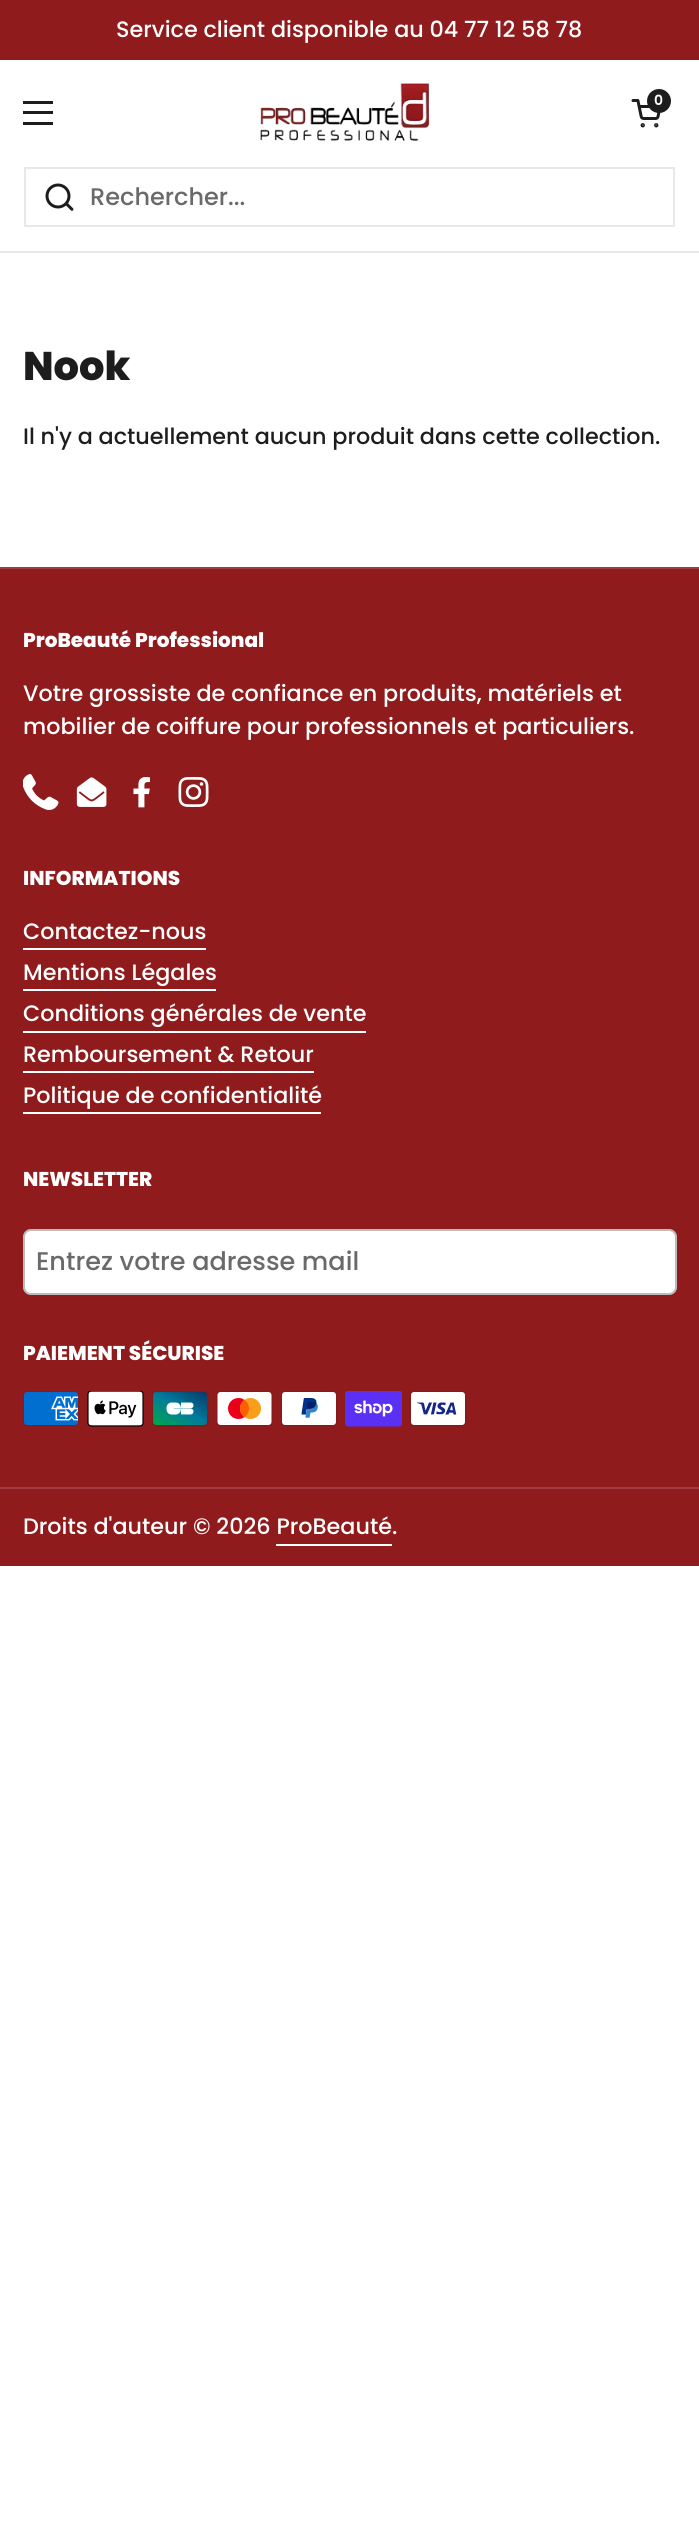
#include <cairo.h>
#include <math.h>
#include <stddef.h>


static void rgb(cairo_t *cr, int r, int g, int b)
{
	cairo_set_source_rgb(cr, r / 255.0, g / 255.0, b / 255.0);
}

static void face(cairo_t *cr, const char *family, double size, int italic, int bold)
{
	cairo_select_font_face(cr, family, italic ? CAIRO_FONT_SLANT_ITALIC : CAIRO_FONT_SLANT_NORMAL,
		bold ? CAIRO_FONT_WEIGHT_BOLD : CAIRO_FONT_WEIGHT_NORMAL);
	cairo_set_font_size(cr, size);
}

static void label(cairo_t *cr, double x, double y, const char *s)
{
	cairo_move_to(cr, x, y);
	cairo_show_text(cr, s);
}

static void rect(cairo_t *cr, double x, double y, double w, double h)
{
	cairo_rectangle(cr, x, y, w, h);
	cairo_fill(cr);
}

static void rrect(cairo_t *cr, double x, double y, double w, double h, double r)
{
	cairo_new_sub_path(cr);
	cairo_arc(cr, x + w - r, y + h - r, r, 0, M_PI / 2);
	cairo_arc(cr, x + r, y + h - r, r, M_PI / 2, M_PI);
	cairo_arc(cr, x + r, y + r, r, M_PI, 1.5 * M_PI);
	cairo_arc(cr, x + w - r, y + r, r, 1.5 * M_PI, 2 * M_PI);
	cairo_close_path(cr);
}

static void image(cairo_t *cr, const char *path, double x, double y, double w, double h)
{
	cairo_surface_t *image = cairo_image_surface_create_from_png(path);
	cairo_save(cr);
	cairo_set_source_surface(cr, image, x, y);
	cairo_rectangle(cr, x, y, w, h);
	cairo_fill(cr);
	cairo_restore(cr);
	cairo_surface_destroy(image);
}

static void draw(cairo_t *cr) {
	rgb(cr, 255, 255, 255);
	cairo_paint(cr);
	rgb(cr, 144, 27, 28);
	rect(cr, 0, 0, 699, 60);
	face(cr, "Poppins Medium", 22.3, 0, 0);
	rgb(cr, 255, 255, 255);
	label(cr, 116, 37, "Service client disponible au 04 77 12 58 78");
	image(cr, "image0.png", 260, 83, 170, 58);
	image(cr, "image1.png", 631, 99, 30, 29);
	rgb(cr, 29, 29, 29);
	cairo_arc(cr, 659, 101, 12, 0, 2 * M_PI);
	cairo_fill(cr);
	face(cr, "Poppins SemiBold", 14, 0, 0);
	rgb(cr, 255, 255, 255);
	label(cr, 654, 105, "0");
	rgb(cr, 29, 29, 29);
	rect(cr, 23, 101, 30, 3);
	rect(cr, 23, 111, 30, 3);
	rect(cr, 23, 122, 30, 3);
	rgb(cr, 232, 232, 232);
	rect(cr, 0, 251, 699, 2);
	cairo_rectangle(cr, 25, 168, 649, 58);
	cairo_stroke(cr);
	image(cr, "image2.png", 45, 183, 29, 28);
	face(cr, "Poppins Medium", 24, 0, 0);
	rgb(cr, 106, 106, 106);
	label(cr, 90, 205, "Rechercher...");
	face(cr, "Poppins ExtraBold", 40, 0, 0);
	rgb(cr, 29, 29, 29);
	label(cr, 23, 380, "Nook");
	face(cr, "Poppins Medium", 22.3, 0, 0);
	label(cr, 23, 444, "Il n'y a actuellement aucun produit dans cette collection.");
	rgb(cr, 144, 27, 28);
	rect(cr, 0, 569, 699, 997);
	rgb(cr, 161, 61, 62);
	rect(cr, 0, 567, 699, 2);
	face(cr, "Poppins ExtraBold", 20, 0, 0);
	rgb(cr, 255, 255, 255);
	label(cr, 23, 647, "ProBeauté Professional");
	face(cr, "Poppins Medium", 22.3, 0, 0);
	label(cr, 23, 701, "Votre grossiste de confiance en produits, matériels et");
	label(cr, 23, 734, "mobilier de coiffure pour professionnels et particuliers.");
	image(cr, "image3.png", 23, 774, 36, 36);
	image(cr, "image4.png", 76, 777, 31, 30);
	image(cr, "image5.png", 133, 777, 17, 31);
	image(cr, "image6.png", 178, 777, 31, 30);
	face(cr, "Poppins ExtraBold", 20, 0, 0);
	label(cr, 23, 885, "INFORMATIONS");
	face(cr, "Poppins Medium", 22.3, 0, 0);
	label(cr, 23, 939, "Contactez-nous");
	rect(cr, 23, 948, 183, 2);
	label(cr, 23, 980, "Mentions Légales");
	rect(cr, 23, 989, 193, 2);
	label(cr, 23, 1021, "Conditions générales de vente");
	rect(cr, 23, 1031, 343, 2);
	label(cr, 23, 1062, "Remboursement & Retour");
	rect(cr, 23, 1071, 291, 2);
	label(cr, 23, 1103, "Politique de confidentialité");
	rect(cr, 23, 1112, 298, 2);
	face(cr, "Poppins ExtraBold", 20, 0, 0);
	label(cr, 23, 1186, "NEWSLETTER");
	rrect(cr, 23, 1229, 654, 66, 8);
	cairo_fill(cr);
	rrect(cr, 24, 1230, 652, 64, 7);
	cairo_set_source_rgba(cr, 0.114, 0.114, 0.114, 0.3);
	cairo_stroke(cr);
	face(cr, "Poppins Medium", 25.5, 0, 0);
	rgb(cr, 106, 106, 106);
	label(cr, 36, 1270, "Entrez votre adresse mail");
	face(cr, "Poppins ExtraBold", 20, 0, 0);
	rgb(cr, 255, 255, 255);
	label(cr, 23, 1360, "PAIEMENT SÉCURISE");
	image(cr, "image7.png", 23, 1391, 57, 36);
	image(cr, "image8.png", 87, 1391, 57, 36);
	image(cr, "image9.png", 152, 1391, 57, 36);
	image(cr, "image10.png", 216, 1391, 57, 36);
	image(cr, "image11.png", 281, 1391, 57, 36);
	image(cr, "image12.png", 345, 1391, 57, 36);
	image(cr, "image13.png", 410, 1391, 57, 36);
	rgb(cr, 161, 61, 62);
	rect(cr, 0, 1487, 699, 2);
	face(cr, "Poppins Medium", 22.3, 0, 0);
	rgb(cr, 255, 255, 255);
	label(cr, 23, 1534, "Droits d'auteur © 2026 ProBeauté.");
	rect(cr, 276, 1544, 116, 2);
}

int main(void) {
	cairo_surface_t *surface = cairo_image_surface_create(CAIRO_FORMAT_RGB24, 699, 2533);
	cairo_t *cr = cairo_create(surface);
	cairo_font_options_t *options = cairo_font_options_create();
	cairo_font_options_set_hint_metrics(options, CAIRO_HINT_METRICS_OFF);
	cairo_font_options_set_hint_style(options, CAIRO_HINT_STYLE_NONE);
	cairo_set_font_options(cr, options);
	cairo_set_miter_limit(cr, 4);
	draw(cr);
	cairo_surface_write_to_png(surface, "render.png");
	cairo_font_options_destroy(options);
	cairo_destroy(cr);
	cairo_surface_destroy(surface);
	return 0;
}
